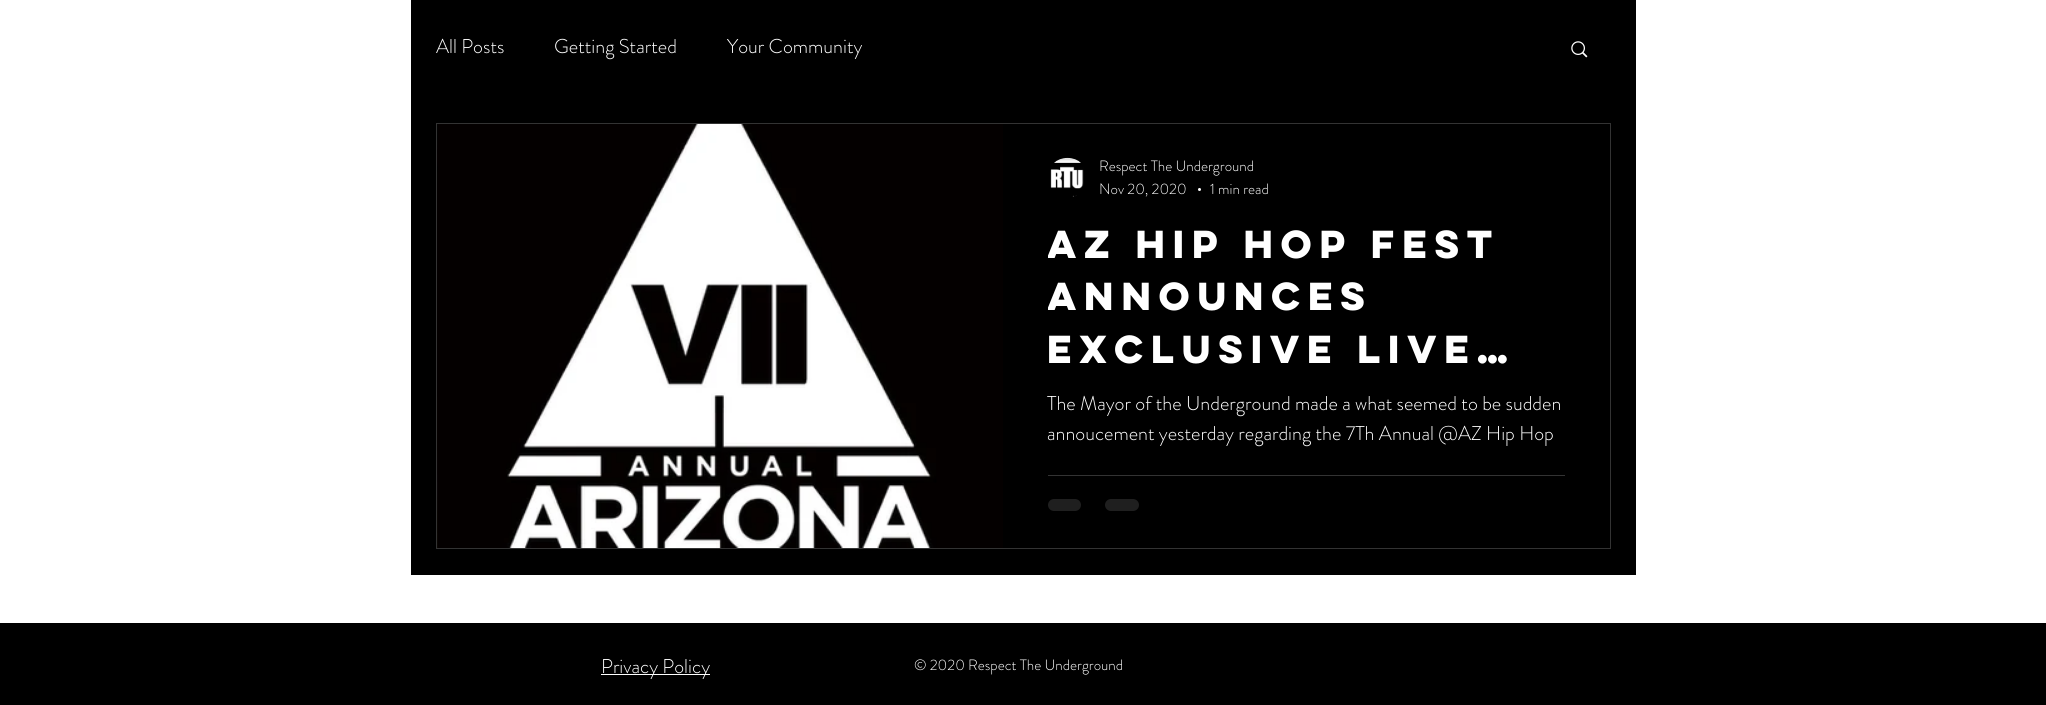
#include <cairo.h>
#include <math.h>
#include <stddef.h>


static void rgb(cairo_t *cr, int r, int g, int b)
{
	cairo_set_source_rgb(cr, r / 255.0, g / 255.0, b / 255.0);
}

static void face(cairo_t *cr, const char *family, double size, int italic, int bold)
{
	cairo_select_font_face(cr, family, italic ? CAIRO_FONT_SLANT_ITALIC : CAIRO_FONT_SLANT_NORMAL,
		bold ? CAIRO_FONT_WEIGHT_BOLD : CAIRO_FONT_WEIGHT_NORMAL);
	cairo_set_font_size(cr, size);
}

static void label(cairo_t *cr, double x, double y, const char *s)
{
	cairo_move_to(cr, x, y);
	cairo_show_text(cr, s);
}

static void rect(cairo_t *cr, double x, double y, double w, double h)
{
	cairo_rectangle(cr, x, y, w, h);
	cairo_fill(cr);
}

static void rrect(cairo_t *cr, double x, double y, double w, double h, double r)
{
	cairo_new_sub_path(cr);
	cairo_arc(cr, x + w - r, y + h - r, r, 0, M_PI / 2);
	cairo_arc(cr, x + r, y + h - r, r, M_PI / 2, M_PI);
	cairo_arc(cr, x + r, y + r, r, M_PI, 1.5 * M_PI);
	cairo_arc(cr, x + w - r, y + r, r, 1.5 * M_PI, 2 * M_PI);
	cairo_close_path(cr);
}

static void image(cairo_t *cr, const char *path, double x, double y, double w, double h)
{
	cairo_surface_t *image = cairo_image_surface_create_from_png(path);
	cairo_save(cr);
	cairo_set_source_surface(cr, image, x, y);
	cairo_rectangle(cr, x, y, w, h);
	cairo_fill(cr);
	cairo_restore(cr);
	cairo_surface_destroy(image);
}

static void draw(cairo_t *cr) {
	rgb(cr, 255, 255, 255);
	cairo_paint(cr);
	rgb(cr, 0, 0, 0);
	rect(cr, 411, 0, 1225, 575);
	face(cr, "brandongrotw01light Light", 20, 0, 0);
	rgb(cr, 255, 255, 255);
	label(cr, 436, 53, "All Posts");
	label(cr, 554, 53, "Getting Started");
	label(cr, 727, 53, "Your Community");
	image(cr, "image0.png", 1571, 41, 17, 17);
	cairo_rectangle(cr, 436.5, 123.5, 1174, 425);
	rgb(cr, 51, 51, 51);
	cairo_set_line_width(cr, 1);
	cairo_stroke(cr);
	image(cr, "image1.png", 437, 124, 1, 424);
	image(cr, "image2.png", 438, 124, 565, 424);
	image(cr, "image3.png", 1050, 157, 34, 40);
	face(cr, "brandongrotw01light Light", 15, 0, 0);
	rgb(cr, 255, 255, 255);
	label(cr, 1099, 171, "Respect The Underground");
	label(cr, 1099, 194, "Nov 20, 2020");
	cairo_new_path(cr);
	cairo_arc(cr, 1199.5, 189.5, 1.5, 0, 2 * M_PI);
	cairo_fill(cr);
	label(cr, 1210, 194, "1 min read");
	cairo_save(cr);
	cairo_rectangle(cr, 1048, 216, 517, 158);
	cairo_clip(cr);
	face(cr, "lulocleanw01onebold", 35, 0, 1);
	label(cr, 1047, 258, "AZ HIP HOP FEST");
	label(cr, 1047, 310, "ANNOUNCES");
	cairo_restore(cr);
	face(cr, "lulocleanw01onebold", 35, 0, 1);
	label(cr, 1047, 363, "Exclusive Live…");
	face(cr, "brandongrotw01light Light", 20, 0, 0);
	label(cr, 1047, 410, "The Mayor of the Underground made a what seemed to be sudden");
	label(cr, 1047, 440, "annoucement yesterday regarding the 7Th Annual @AZ Hip Hop");
	rgb(cr, 51, 51, 51);
	rect(cr, 1048, 475, 517, 1);
	rgb(cr, 31, 31, 31);
	rrect(cr, 1048, 499, 33, 12, 6);
	cairo_fill(cr);
	rrect(cr, 1105, 499, 34, 12, 6);
	cairo_fill(cr);
	rgb(cr, 0, 0, 0);
	rect(cr, 0, 623, 2046, 82);
	rgb(cr, 255, 255, 255);
	rect(cr, 601, 674, 109, 1);
	label(cr, 601, 673, "Privacy Policy");
	face(cr, "brandongrotw01light Light", 15, 0, 0);
	label(cr, 914, 670, "© 2020 Respect The Underground");
}

int main(void) {
	cairo_surface_t *surface = cairo_image_surface_create(CAIRO_FORMAT_RGB24, 2046, 705);
	cairo_t *cr = cairo_create(surface);
	cairo_font_options_t *options = cairo_font_options_create();
	cairo_font_options_set_hint_metrics(options, CAIRO_HINT_METRICS_OFF);
	cairo_font_options_set_hint_style(options, CAIRO_HINT_STYLE_NONE);
	cairo_set_font_options(cr, options);
	cairo_set_miter_limit(cr, 4);
	draw(cr);
	cairo_surface_write_to_png(surface, "render.png");
	cairo_font_options_destroy(options);
	cairo_destroy(cr);
	cairo_surface_destroy(surface);
	return 0;
}
